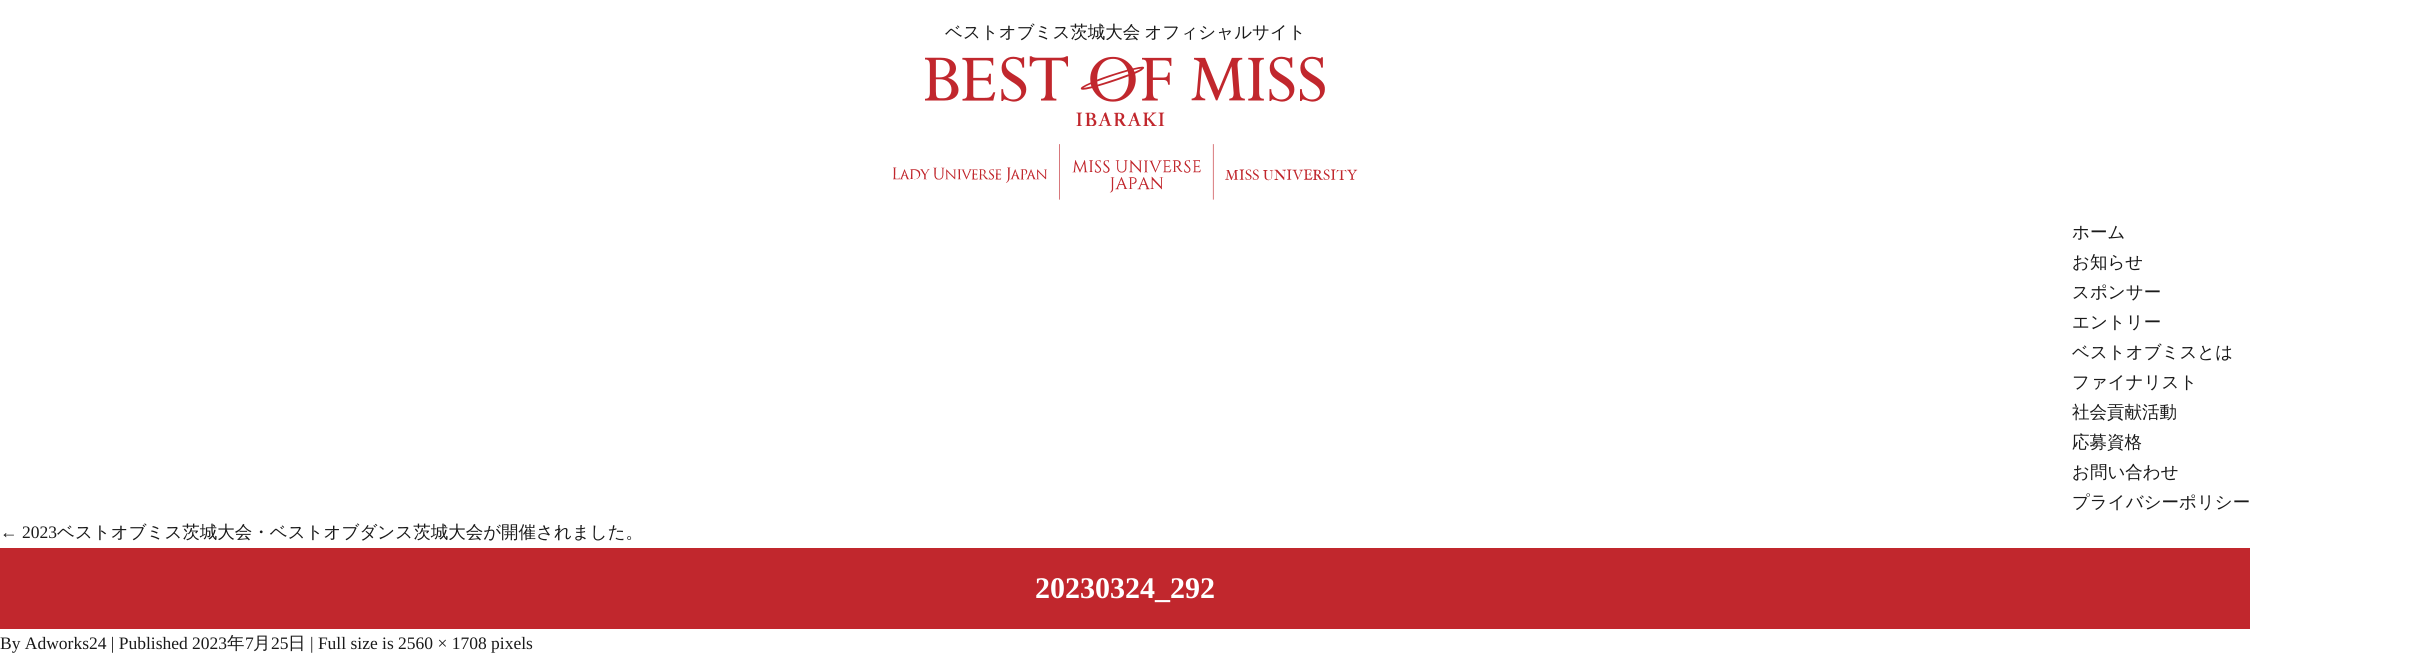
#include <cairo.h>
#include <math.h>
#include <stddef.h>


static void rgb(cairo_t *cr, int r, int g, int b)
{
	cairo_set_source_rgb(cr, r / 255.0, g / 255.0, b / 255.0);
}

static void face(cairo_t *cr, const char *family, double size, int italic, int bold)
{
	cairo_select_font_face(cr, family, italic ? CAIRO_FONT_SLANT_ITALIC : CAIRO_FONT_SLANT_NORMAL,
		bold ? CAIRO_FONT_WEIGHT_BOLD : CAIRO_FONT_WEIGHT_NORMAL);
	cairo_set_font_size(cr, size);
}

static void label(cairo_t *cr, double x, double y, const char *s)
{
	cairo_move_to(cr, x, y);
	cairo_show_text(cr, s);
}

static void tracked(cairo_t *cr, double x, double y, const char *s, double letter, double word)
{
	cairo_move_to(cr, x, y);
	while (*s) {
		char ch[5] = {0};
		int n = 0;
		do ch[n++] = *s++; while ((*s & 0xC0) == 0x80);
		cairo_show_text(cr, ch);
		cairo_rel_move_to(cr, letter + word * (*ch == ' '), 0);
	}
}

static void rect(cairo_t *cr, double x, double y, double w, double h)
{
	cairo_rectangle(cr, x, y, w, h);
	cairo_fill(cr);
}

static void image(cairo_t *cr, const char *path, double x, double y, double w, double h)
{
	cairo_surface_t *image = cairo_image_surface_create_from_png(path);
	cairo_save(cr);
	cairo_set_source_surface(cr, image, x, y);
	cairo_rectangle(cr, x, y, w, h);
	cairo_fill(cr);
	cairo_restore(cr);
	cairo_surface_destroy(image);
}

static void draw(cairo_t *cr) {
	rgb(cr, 255, 255, 255);
	cairo_paint(cr);
	face(cr, "WenQuanYi Zen Hei Medium", 17.5, 0, 0);
	rgb(cr, 26, 26, 26);
	tracked(cr, 945, 38, "ベストオブミス茨城大会 オフィシャルサイト", 0, -1);
	image(cr, "image0.png", 925, 56, 400, 70);
	image(cr, "image1.png", 893, 144, 465, 56);
	label(cr, 2072, 238, "ホーム");
	label(cr, 2072, 268, "お知らせ");
	label(cr, 2072, 298, "スポンサー");
	label(cr, 2072, 328, "エントリー");
	label(cr, 2072, 358, "ベストオブミスとは");
	label(cr, 2072, 388, "ファイナリスト");
	label(cr, 2072, 418, "社会貢献活動");
	label(cr, 2072, 448, "応募資格");
	label(cr, 2072, 478, "お問い合わせ");
	label(cr, 2072, 508, "プライバシーポリシー");
	face(cr, "Liberation Serif", 17.5, 0, 0);
	label(cr, 0, 538, "← 2023");
	face(cr, "WenQuanYi Zen Hei Medium", 17.5, 0, 0);
	label(cr, 57, 538, "ベストオブミス茨城大会・ベストオブダンス茨城大会が開催されました。");
	rgb(cr, 193, 39, 45);
	rect(cr, 0, 548, 2250, 81);
	face(cr, "Liberation Serif", 30, 0, 1);
	rgb(cr, 255, 255, 255);
	label(cr, 1035, 598, "20230324_292");
	face(cr, "Liberation Serif", 17.5, 0, 0);
	rgb(cr, 26, 26, 26);
	label(cr, 0, 649, "By Adworks24 | Published 2023");
	face(cr, "WenQuanYi Zen Hei Medium", 17.5, 0, 0);
	label(cr, 227, 649, "年");
	face(cr, "Liberation Serif", 17.5, 0, 0);
	label(cr, 245, 649, "7");
	face(cr, "WenQuanYi Zen Hei Medium", 17.5, 0, 0);
	label(cr, 253, 649, "月");
	face(cr, "Liberation Serif", 17.5, 0, 0);
	label(cr, 271, 649, "25");
	face(cr, "WenQuanYi Zen Hei Medium", 17.5, 0, 0);
	label(cr, 288, 649, "日");
	face(cr, "Liberation Serif", 17.5, 0, 0);
	label(cr, 310, 649, "| Full size is 2560 × 1708 pixels");
}

int main(void) {
	cairo_surface_t *surface = cairo_image_surface_create(CAIRO_FORMAT_RGB24, 2417, 669);
	cairo_t *cr = cairo_create(surface);
	cairo_font_options_t *options = cairo_font_options_create();
	cairo_font_options_set_hint_metrics(options, CAIRO_HINT_METRICS_OFF);
	cairo_font_options_set_hint_style(options, CAIRO_HINT_STYLE_NONE);
	cairo_set_font_options(cr, options);
	cairo_set_miter_limit(cr, 4);
	draw(cr);
	cairo_surface_write_to_png(surface, "render.png");
	cairo_font_options_destroy(options);
	cairo_destroy(cr);
	cairo_surface_destroy(surface);
	return 0;
}
